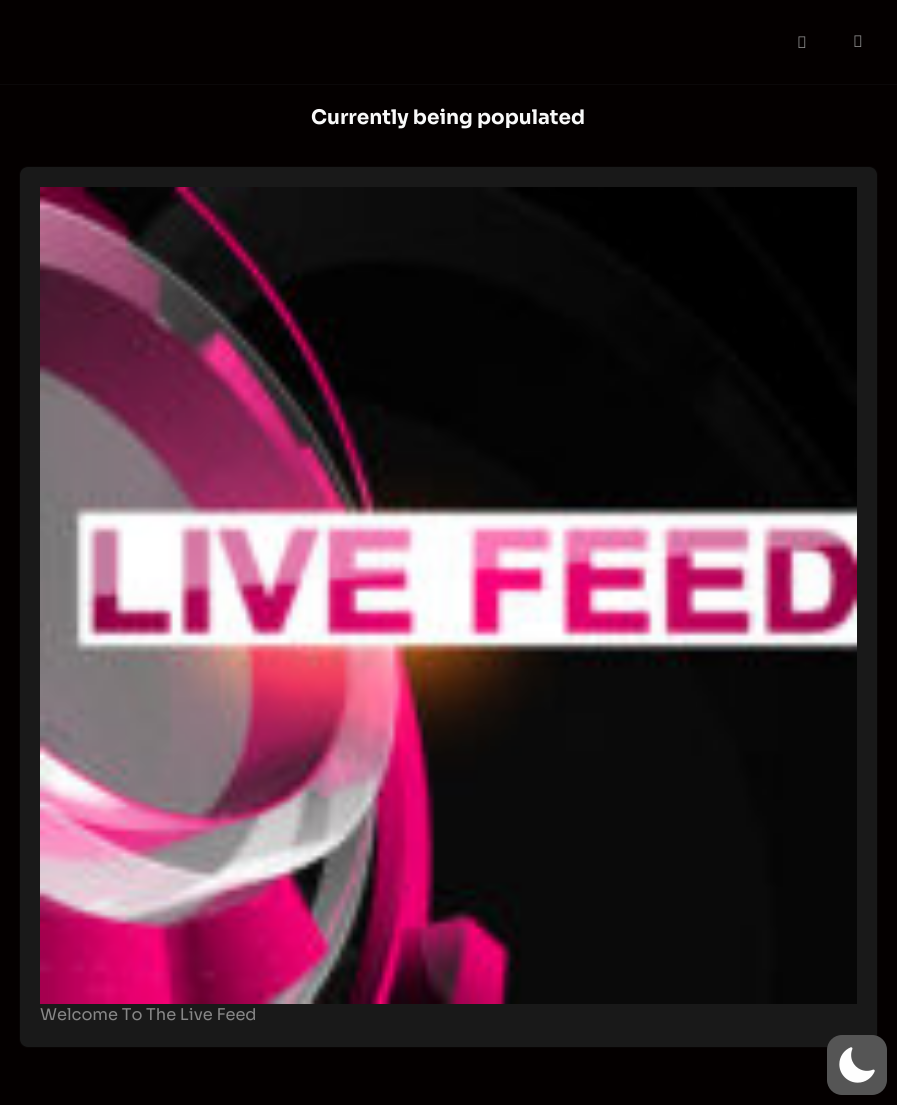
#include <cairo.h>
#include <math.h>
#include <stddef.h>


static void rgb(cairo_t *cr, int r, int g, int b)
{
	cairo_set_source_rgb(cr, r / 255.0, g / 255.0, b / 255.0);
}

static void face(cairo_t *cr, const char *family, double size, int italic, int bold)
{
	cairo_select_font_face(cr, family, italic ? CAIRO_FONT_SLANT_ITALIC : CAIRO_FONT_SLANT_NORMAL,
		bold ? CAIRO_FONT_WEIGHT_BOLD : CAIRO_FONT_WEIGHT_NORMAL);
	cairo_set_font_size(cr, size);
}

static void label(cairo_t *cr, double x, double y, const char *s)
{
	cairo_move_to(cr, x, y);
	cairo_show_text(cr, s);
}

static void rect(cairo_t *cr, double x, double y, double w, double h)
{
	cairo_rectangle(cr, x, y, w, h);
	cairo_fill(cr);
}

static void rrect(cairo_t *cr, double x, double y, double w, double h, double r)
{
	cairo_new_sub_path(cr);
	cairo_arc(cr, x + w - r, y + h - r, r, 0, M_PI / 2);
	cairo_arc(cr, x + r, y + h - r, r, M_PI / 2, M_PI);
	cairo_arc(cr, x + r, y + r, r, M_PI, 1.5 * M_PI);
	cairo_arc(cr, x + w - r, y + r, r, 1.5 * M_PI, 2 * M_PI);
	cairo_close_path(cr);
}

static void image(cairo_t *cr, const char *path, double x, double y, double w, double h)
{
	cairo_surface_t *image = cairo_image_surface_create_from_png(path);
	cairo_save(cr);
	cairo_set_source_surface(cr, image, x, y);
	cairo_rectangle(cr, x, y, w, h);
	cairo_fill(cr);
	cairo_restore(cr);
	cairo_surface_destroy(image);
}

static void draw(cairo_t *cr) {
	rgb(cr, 4, 0, 0);
	cairo_paint(cr);
	rgb(cr, 11, 8, 9);
	rect(cr, 0, 84, 897, 1);
	image(cr, "image0.png", 798, 36, 8, 12);
	image(cr, "image0.png", 854, 35, 8, 12);
	face(cr, "Sora", 20, 0, 1);
	rgb(cr, 249, 249, 249);
	label(cr, 311, 124, "Currently being populated");
	rrect(cr, 19.5, 166.5, 858, 881, 8.5);
	rgb(cr, 7, 4, 4);
	cairo_set_line_width(cr, 1);
	cairo_stroke(cr);
	rgb(cr, 25, 25, 25);
	rrect(cr, 20, 167, 857, 880, 8);
	cairo_fill(cr);
	image(cr, "image1.png", 40, 187, 817, 817);
	face(cr, "Sora", 16.25, 0, 0);
	rgb(cr, 135, 135, 135);
	label(cr, 40, 1020, "Welcome To The Live Feed");
	rgb(cr, 85, 85, 85);
	rrect(cr, 827, 1035, 60, 60, 15);
	cairo_fill(cr);
	image(cr, "image2.png", 839, 1047, 36, 36);
}

int main(void) {
	cairo_surface_t *surface = cairo_image_surface_create(CAIRO_FORMAT_RGB24, 897, 1105);
	cairo_t *cr = cairo_create(surface);
	cairo_font_options_t *options = cairo_font_options_create();
	cairo_font_options_set_hint_metrics(options, CAIRO_HINT_METRICS_OFF);
	cairo_font_options_set_hint_style(options, CAIRO_HINT_STYLE_NONE);
	cairo_set_font_options(cr, options);
	cairo_set_miter_limit(cr, 4);
	draw(cr);
	cairo_surface_write_to_png(surface, "render.png");
	cairo_font_options_destroy(options);
	cairo_destroy(cr);
	cairo_surface_destroy(surface);
	return 0;
}
